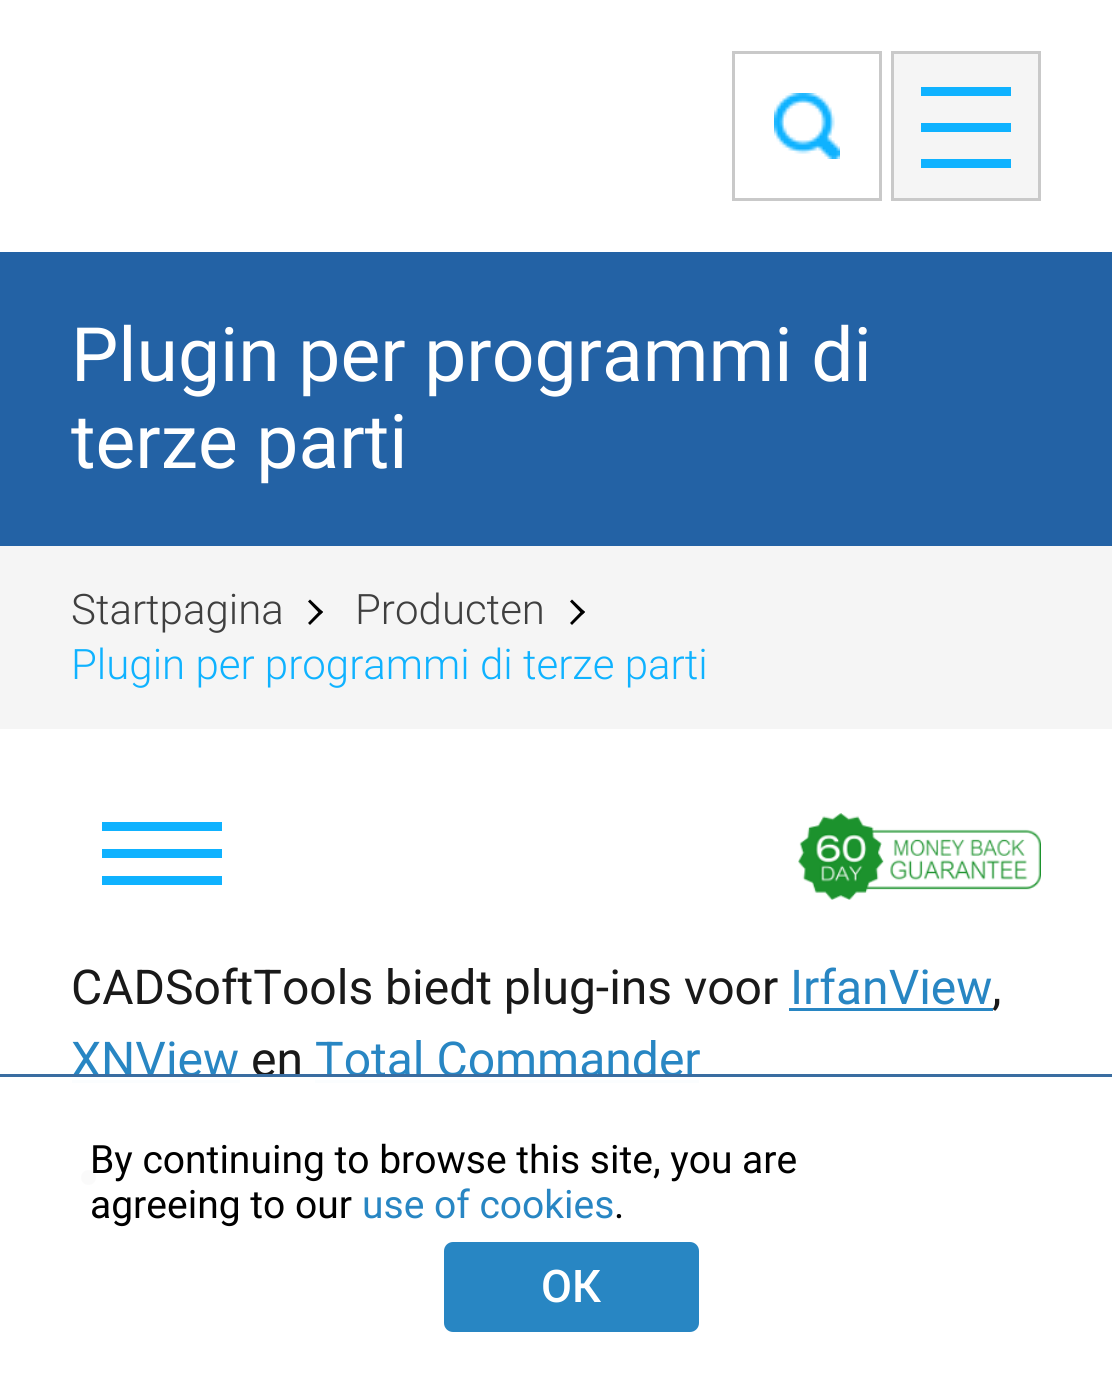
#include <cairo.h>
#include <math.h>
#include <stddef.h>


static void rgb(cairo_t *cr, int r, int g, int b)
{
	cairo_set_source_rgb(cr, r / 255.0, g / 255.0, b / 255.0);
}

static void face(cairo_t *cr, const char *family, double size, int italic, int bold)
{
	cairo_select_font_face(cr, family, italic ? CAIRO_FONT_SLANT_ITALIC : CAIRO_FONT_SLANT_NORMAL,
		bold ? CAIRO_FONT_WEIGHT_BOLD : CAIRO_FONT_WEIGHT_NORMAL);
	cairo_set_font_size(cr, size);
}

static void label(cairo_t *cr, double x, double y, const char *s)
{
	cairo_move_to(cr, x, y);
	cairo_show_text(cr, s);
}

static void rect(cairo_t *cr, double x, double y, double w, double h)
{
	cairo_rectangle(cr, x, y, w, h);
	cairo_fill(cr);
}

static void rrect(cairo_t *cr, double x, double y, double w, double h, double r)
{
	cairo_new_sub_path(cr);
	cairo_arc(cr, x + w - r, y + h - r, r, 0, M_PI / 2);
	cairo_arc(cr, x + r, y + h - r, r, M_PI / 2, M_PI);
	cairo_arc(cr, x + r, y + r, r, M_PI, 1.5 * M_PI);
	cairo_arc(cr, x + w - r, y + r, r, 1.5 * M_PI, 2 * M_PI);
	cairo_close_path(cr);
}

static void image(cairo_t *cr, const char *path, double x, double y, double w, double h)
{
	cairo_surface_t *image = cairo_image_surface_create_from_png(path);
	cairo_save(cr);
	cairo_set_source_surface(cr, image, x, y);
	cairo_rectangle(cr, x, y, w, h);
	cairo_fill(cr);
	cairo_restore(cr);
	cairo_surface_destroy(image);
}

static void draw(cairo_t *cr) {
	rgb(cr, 255, 255, 255);
	cairo_paint(cr);
	cairo_rectangle(cr, 733.5, 52.5, 147, 147);
	rgb(cr, 201, 201, 201);
	cairo_set_line_width(cr, 3);
	cairo_stroke(cr);
	image(cr, "image0.png", 774, 93, 66, 66);
	rgb(cr, 245, 245, 245);
	cairo_rectangle(cr, 892.5, 52.5, 147, 147);
	cairo_fill_preserve(cr);
	rgb(cr, 201, 201, 201);
	cairo_stroke(cr);
	rgb(cr, 15, 178, 255);
	rect(cr, 921, 87, 90, 9);
	rect(cr, 921, 123, 90, 9);
	rect(cr, 921, 159, 90, 9);
	rgb(cr, 35, 98, 165);
	rect(cr, 0, 252, 1112, 294);
	face(cr, "Roboto", 75, 0, 0);
	rgb(cr, 255, 255, 255);
	label(cr, 71, 381, "Plugin per programmi di");
	label(cr, 71, 468, "terze parti");
	rgb(cr, 245, 245, 245);
	rect(cr, 0, 546, 1112, 183);
	face(cr, "Roboto Light", 42, 0, 0);
	rgb(cr, 63, 63, 63);
	label(cr, 71, 624, "Startpagina");
	rgb(cr, 0, 0, 0);
	cairo_new_path(cr);
	cairo_move_to(cr, 308, 601.5);
	cairo_line_to(cr, 310, 599.5);
	cairo_line_to(cr, 323, 612);
	cairo_line_to(cr, 320.5, 614.5);
	cairo_close_path(cr);
	cairo_fill(cr);
	cairo_new_path(cr);
	cairo_move_to(cr, 308, 623);
	cairo_line_to(cr, 320.5, 610);
	cairo_line_to(cr, 323, 612);
	cairo_line_to(cr, 310, 625);
	cairo_close_path(cr);
	cairo_fill(cr);
	rgb(cr, 63, 63, 63);
	label(cr, 355, 624, "Producten");
	rgb(cr, 0, 0, 0);
	cairo_new_path(cr);
	cairo_move_to(cr, 570, 601.5);
	cairo_line_to(cr, 572, 599.5);
	cairo_line_to(cr, 585, 612);
	cairo_line_to(cr, 582.5, 614.5);
	cairo_close_path(cr);
	cairo_fill(cr);
	cairo_new_path(cr);
	cairo_move_to(cr, 570, 623);
	cairo_line_to(cr, 582.5, 610);
	cairo_line_to(cr, 585, 612);
	cairo_line_to(cr, 572, 625);
	cairo_close_path(cr);
	cairo_fill(cr);
	rgb(cr, 15, 178, 255);
	label(cr, 71, 679, "Plugin per programmi di terze parti");
	rect(cr, 102, 822, 120, 9);
	rect(cr, 102, 849, 120, 9);
	rect(cr, 102, 876, 120, 9);
	image(cr, "image1.png", 798, 813, 243, 87);
	face(cr, "Roboto", 48, 0, 0);
	rgb(cr, 25, 25, 25);
	label(cr, 71, 1004, "CADSoftTools biedt plug-ins voor");
	rgb(cr, 40, 134, 195);
	label(cr, 790, 1004, "IrfanView");
	rect(cr, 789, 1008, 204, 3);
	rgb(cr, 25, 25, 25);
	label(cr, 992, 1004, ",");
	rgb(cr, 40, 134, 195);
	label(cr, 71, 1076, "XNView");
	rect(cr, 72, 1080, 168, 3);
	rgb(cr, 25, 25, 25);
	label(cr, 251, 1076, "en");
	rgb(cr, 40, 134, 195);
	label(cr, 315, 1076, "Total Commander");
	rect(cr, 315, 1080, 384, 3);
	rgb(cr, 25, 25, 25);
	cairo_new_path(cr);
	cairo_arc(cr, 88.5, 1177.5, 7.5, 0, 2 * M_PI);
	cairo_fill(cr);
	cairo_set_source_rgba(cr, 1, 1, 1, 0.98);
	rect(cr, 72, 1080, 627, 105);
	rgb(cr, 58, 109, 161);
	rect(cr, 0, 1074, 1112, 3);
	face(cr, "Roboto", 39, 0, 0);
	rgb(cr, 0, 0, 0);
	label(cr, 90, 1173, "By continuing to browse this site, you are");
	label(cr, 90, 1218, "agreeing to our");
	rgb(cr, 40, 134, 195);
	label(cr, 362, 1218, "use of cookies");
	rgb(cr, 0, 0, 0);
	label(cr, 614, 1218, ".");
	rgb(cr, 40, 134, 195);
	rrect(cr, 447, 1245, 249, 84, 6);
	cairo_fill_preserve(cr);
	cairo_set_line_width(cr, 6);
	cairo_stroke(cr);
	face(cr, "Roboto Medium", 45, 0, 0);
	rgb(cr, 255, 255, 255);
	label(cr, 541, 1302, "ОК");
}

int main(void) {
	cairo_surface_t *surface = cairo_image_surface_create(CAIRO_FORMAT_RGB24, 1112, 1392);
	cairo_t *cr = cairo_create(surface);
	cairo_font_options_t *options = cairo_font_options_create();
	cairo_font_options_set_hint_metrics(options, CAIRO_HINT_METRICS_OFF);
	cairo_font_options_set_hint_style(options, CAIRO_HINT_STYLE_NONE);
	cairo_set_font_options(cr, options);
	cairo_set_miter_limit(cr, 4);
	draw(cr);
	cairo_surface_write_to_png(surface, "render.png");
	cairo_font_options_destroy(options);
	cairo_destroy(cr);
	cairo_surface_destroy(surface);
	return 0;
}
